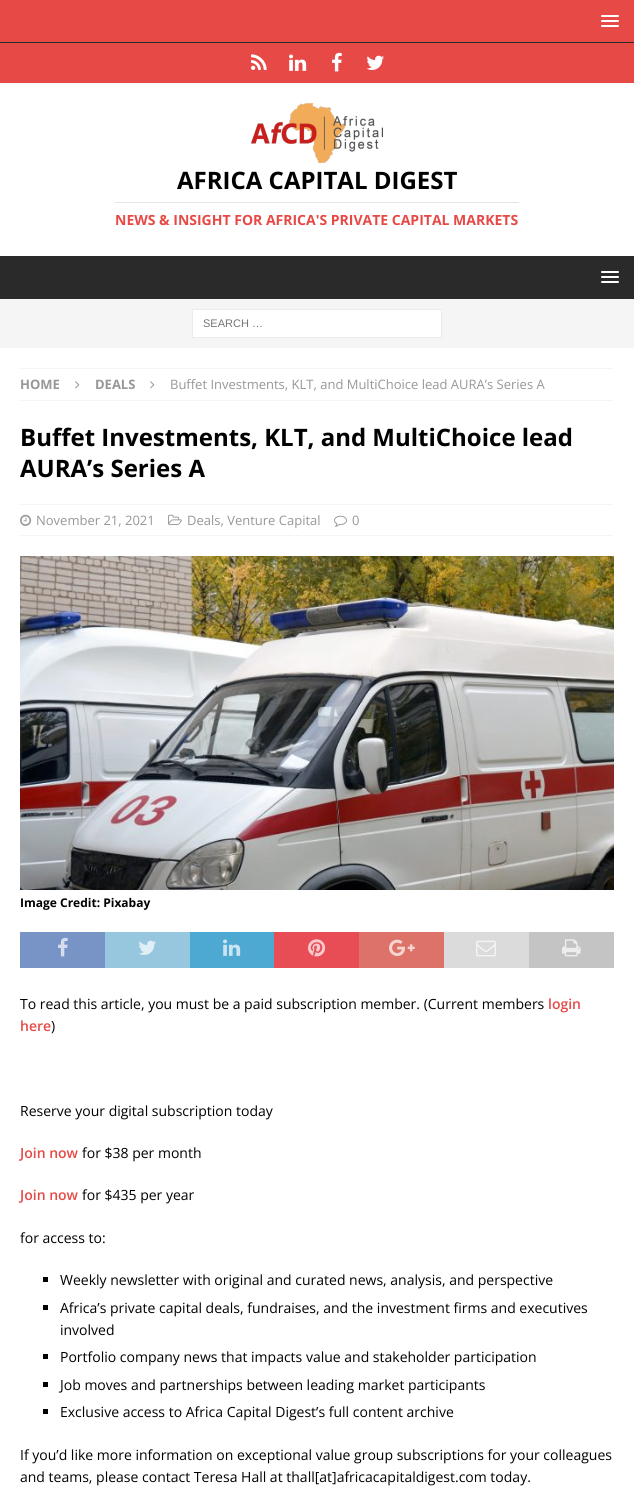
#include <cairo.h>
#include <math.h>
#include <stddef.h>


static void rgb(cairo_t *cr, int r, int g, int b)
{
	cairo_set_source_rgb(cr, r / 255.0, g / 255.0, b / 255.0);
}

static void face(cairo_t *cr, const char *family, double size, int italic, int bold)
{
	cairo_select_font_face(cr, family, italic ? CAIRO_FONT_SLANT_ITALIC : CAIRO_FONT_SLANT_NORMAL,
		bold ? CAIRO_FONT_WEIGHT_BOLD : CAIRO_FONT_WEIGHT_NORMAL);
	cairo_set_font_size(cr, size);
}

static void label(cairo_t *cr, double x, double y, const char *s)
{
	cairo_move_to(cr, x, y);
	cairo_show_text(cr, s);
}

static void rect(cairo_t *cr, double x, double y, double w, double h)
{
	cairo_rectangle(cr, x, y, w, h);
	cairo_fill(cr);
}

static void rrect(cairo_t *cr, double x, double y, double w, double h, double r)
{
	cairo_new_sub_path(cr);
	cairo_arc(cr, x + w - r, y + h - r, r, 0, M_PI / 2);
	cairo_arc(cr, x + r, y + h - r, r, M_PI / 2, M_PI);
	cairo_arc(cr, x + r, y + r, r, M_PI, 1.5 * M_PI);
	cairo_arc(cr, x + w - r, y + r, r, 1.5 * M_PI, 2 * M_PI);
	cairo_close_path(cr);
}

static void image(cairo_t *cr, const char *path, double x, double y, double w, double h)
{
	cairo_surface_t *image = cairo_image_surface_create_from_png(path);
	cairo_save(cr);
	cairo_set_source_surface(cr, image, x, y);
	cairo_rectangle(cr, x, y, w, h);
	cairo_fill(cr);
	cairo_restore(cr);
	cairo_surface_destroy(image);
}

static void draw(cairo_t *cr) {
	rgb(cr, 230, 73, 70);
	cairo_paint(cr);
	rgb(cr, 42, 42, 42);
	rect(cr, 0, 42, 634, 1);
	rgb(cr, 255, 255, 255);
	rrect(cr, 601, 15, 18, 2, 1);
	cairo_fill(cr);
	rrect(cr, 601, 20, 18, 2, 1);
	cairo_fill(cr);
	rrect(cr, 601, 25, 18, 2, 1);
	cairo_fill(cr);
	image(cr, "image0.png", 251, 54, 16, 16);
	image(cr, "image1.png", 289, 54, 18, 17);
	image(cr, "image2.png", 332, 52, 10, 20);
	image(cr, "image3.png", 366, 55, 18, 15);
	rect(cr, 0, 83, 634, 173);
	image(cr, "image4.png", 251, 103, 132, 60);
	face(cr, "Open Sans", 24, 0, 1);
	rgb(cr, 0, 0, 0);
	label(cr, 177, 189, "AFRICA CAPITAL DIGEST");
	rgb(cr, 229, 229, 229);
	rect(cr, 115, 202, 404, 1);
	face(cr, "Open Sans", 14, 0, 1);
	rgb(cr, 230, 73, 70);
	label(cr, 115, 225, "NEWS & INSIGHT FOR AFRICA'S PRIVATE CAPITAL MARKETS");
	rgb(cr, 42, 42, 42);
	rect(cr, 0, 256, 634, 43);
	rgb(cr, 255, 255, 255);
	rrect(cr, 601, 271, 18, 2, 1);
	cairo_fill(cr);
	rrect(cr, 601, 276, 18, 2, 1);
	cairo_fill(cr);
	rrect(cr, 601, 281, 18, 2, 1);
	cairo_fill(cr);
	rgb(cr, 245, 245, 245);
	rect(cr, 0, 299, 634, 49);
	rgb(cr, 255, 255, 255);
	cairo_rectangle(cr, 192.5, 309.5, 249, 28);
	cairo_fill_preserve(cr);
	rgb(cr, 235, 235, 235);
	cairo_set_line_width(cr, 1);
	cairo_stroke(cr);
	face(cr, "Liberation Sans", 11, 0, 0);
	rgb(cr, 117, 117, 117);
	label(cr, 203, 327, "SEARCH …");
	rgb(cr, 255, 255, 255);
	rect(cr, 0, 348, 634, 1141);
	cairo_new_path(cr);
	cairo_move_to(cr, 20, 368.5);
	cairo_line_to(cr, 614, 368.5);
	rgb(cr, 235, 235, 235);
	cairo_set_dash(cr, (double[]){1, 1}, 2, 0);
	cairo_stroke(cr);
	cairo_new_path(cr);
	cairo_move_to(cr, 20, 400.5);
	cairo_line_to(cr, 614, 400.5);
	cairo_stroke(cr);
	face(cr, "Open Sans", 13, 0, 1);
	rgb(cr, 151, 151, 151);
	label(cr, 20, 389, "HOME");
	image(cr, "image5.png", 75, 381, 5, 8);
	label(cr, 95, 389, "DEALS");
	image(cr, "image5.png", 150, 381, 5, 8);
	face(cr, "Open Sans", 13, 0, 0);
	label(cr, 170, 389, "Buffet Investments, KLT, and MultiChoice lead AURA’s Series A");
	face(cr, "Open Sans", 24, 0, 1);
	rgb(cr, 0, 0, 0);
	label(cr, 20, 446, "Buffet Investments, KLT, and MultiChoice lead");
	label(cr, 20, 477, "AURA’s Series A");
	cairo_new_path(cr);
	cairo_move_to(cr, 20, 504.5);
	cairo_line_to(cr, 614, 504.5);
	rgb(cr, 235, 235, 235);
	cairo_stroke(cr);
	cairo_new_path(cr);
	cairo_move_to(cr, 20, 535.5);
	cairo_line_to(cr, 614, 535.5);
	cairo_stroke(cr);
	image(cr, "image6.png", 20, 514, 12, 12);
	face(cr, "Open Sans", 13, 0, 0);
	rgb(cr, 151, 151, 151);
	label(cr, 36, 525, "November 21, 2021");
	image(cr, "image7.png", 168, 514, 14, 11);
	label(cr, 187, 525, "Deals, Venture Capital");
	image(cr, "image8.png", 334, 515, 13, 12);
	label(cr, 352, 525, "0");
	image(cr, "image9.png", 20, 556, 594, 334);
	face(cr, "Open Sans", 12, 0, 1);
	rgb(cr, 0, 0, 0);
	label(cr, 20, 907, "Image Credit: Pixabay");
	rgb(cr, 120, 147, 198);
	rect(cr, 20, 932, 85, 36);
	image(cr, "image10.png", 58, 937, 10, 20);
	rgb(cr, 151, 198, 223);
	rect(cr, 105, 932, 85, 36);
	image(cr, "image11.png", 138, 940, 18, 15);
	rgb(cr, 77, 169, 210);
	rect(cr, 190, 932, 84, 36);
	image(cr, "image12.png", 223, 939, 18, 17);
	rgb(cr, 232, 77, 86);
	rect(cr, 274, 932, 85, 36);
	image(cr, "image13.png", 308, 939, 18, 18);
	rgb(cr, 220, 114, 104);
	rect(cr, 359, 932, 85, 36);
	image(cr, "image14.png", 389, 939, 26, 17);
	rgb(cr, 219, 219, 219);
	rect(cr, 444, 932, 85, 36);
	image(cr, "image15.png", 476, 940, 20, 17);
	rgb(cr, 196, 196, 196);
	rect(cr, 529, 932, 85, 36);
	image(cr, "image16.png", 562, 939, 19, 18);
	face(cr, "Open Sans", 14, 0, 0);
	rgb(cr, 0, 0, 0);
	label(cr, 20, 1009, "To read this article, you must be a paid subscription member. (Current members");
	face(cr, "Open Sans SemiBold", 14, 0, 0);
	rgb(cr, 230, 73, 70);
	label(cr, 548, 1009, "login");
	label(cr, 20, 1031, "here");
	face(cr, "Open Sans", 14, 0, 0);
	rgb(cr, 0, 0, 0);
	label(cr, 51, 1031, ")");
	label(cr, 20, 1116, "Reserve your digital subscription today");
	face(cr, "Open Sans SemiBold", 14, 0, 0);
	rgb(cr, 230, 73, 70);
	label(cr, 20, 1158, "Join now");
	face(cr, "Open Sans", 14, 0, 0);
	rgb(cr, 0, 0, 0);
	label(cr, 82, 1158, "for $38 per month");
	face(cr, "Open Sans SemiBold", 14, 0, 0);
	rgb(cr, 230, 73, 70);
	label(cr, 20, 1200, "Join now");
	face(cr, "Open Sans", 14, 0, 0);
	rgb(cr, 0, 0, 0);
	label(cr, 82, 1200, "for $435 per year");
	label(cr, 20, 1243, "for access to:");
	rect(cr, 43, 1277, 5, 5);
	label(cr, 60, 1285, "Weekly newsletter with original and curated news, analysis, and perspective");
	rect(cr, 43, 1305, 5, 5);
	label(cr, 60, 1313, "Africa’s private capital deals, fundraises, and the investment firms and executives");
	label(cr, 60, 1335, "involved");
	rect(cr, 43, 1354, 5, 5);
	label(cr, 60, 1362, "Portfolio company news that impacts value and stakeholder participation");
	rect(cr, 43, 1382, 5, 5);
	label(cr, 60, 1390, "Job moves and partnerships between leading market participants");
	rect(cr, 43, 1409, 5, 5);
	label(cr, 60, 1417, "Exclusive access to Africa Capital Digest’s full content archive");
	label(cr, 20, 1460, "If you’d like more information on exceptional value group subscriptions for your colleagues");
	label(cr, 20, 1482, "and teams, please contact Teresa Hall at thall[at]africacapitaldigest.com today.");
}

int main(void) {
	cairo_surface_t *surface = cairo_image_surface_create(CAIRO_FORMAT_RGB24, 634, 1489);
	cairo_t *cr = cairo_create(surface);
	cairo_font_options_t *options = cairo_font_options_create();
	cairo_font_options_set_hint_metrics(options, CAIRO_HINT_METRICS_OFF);
	cairo_font_options_set_hint_style(options, CAIRO_HINT_STYLE_NONE);
	cairo_set_font_options(cr, options);
	cairo_set_miter_limit(cr, 4);
	draw(cr);
	cairo_surface_write_to_png(surface, "render.png");
	cairo_font_options_destroy(options);
	cairo_destroy(cr);
	cairo_surface_destroy(surface);
	return 0;
}
